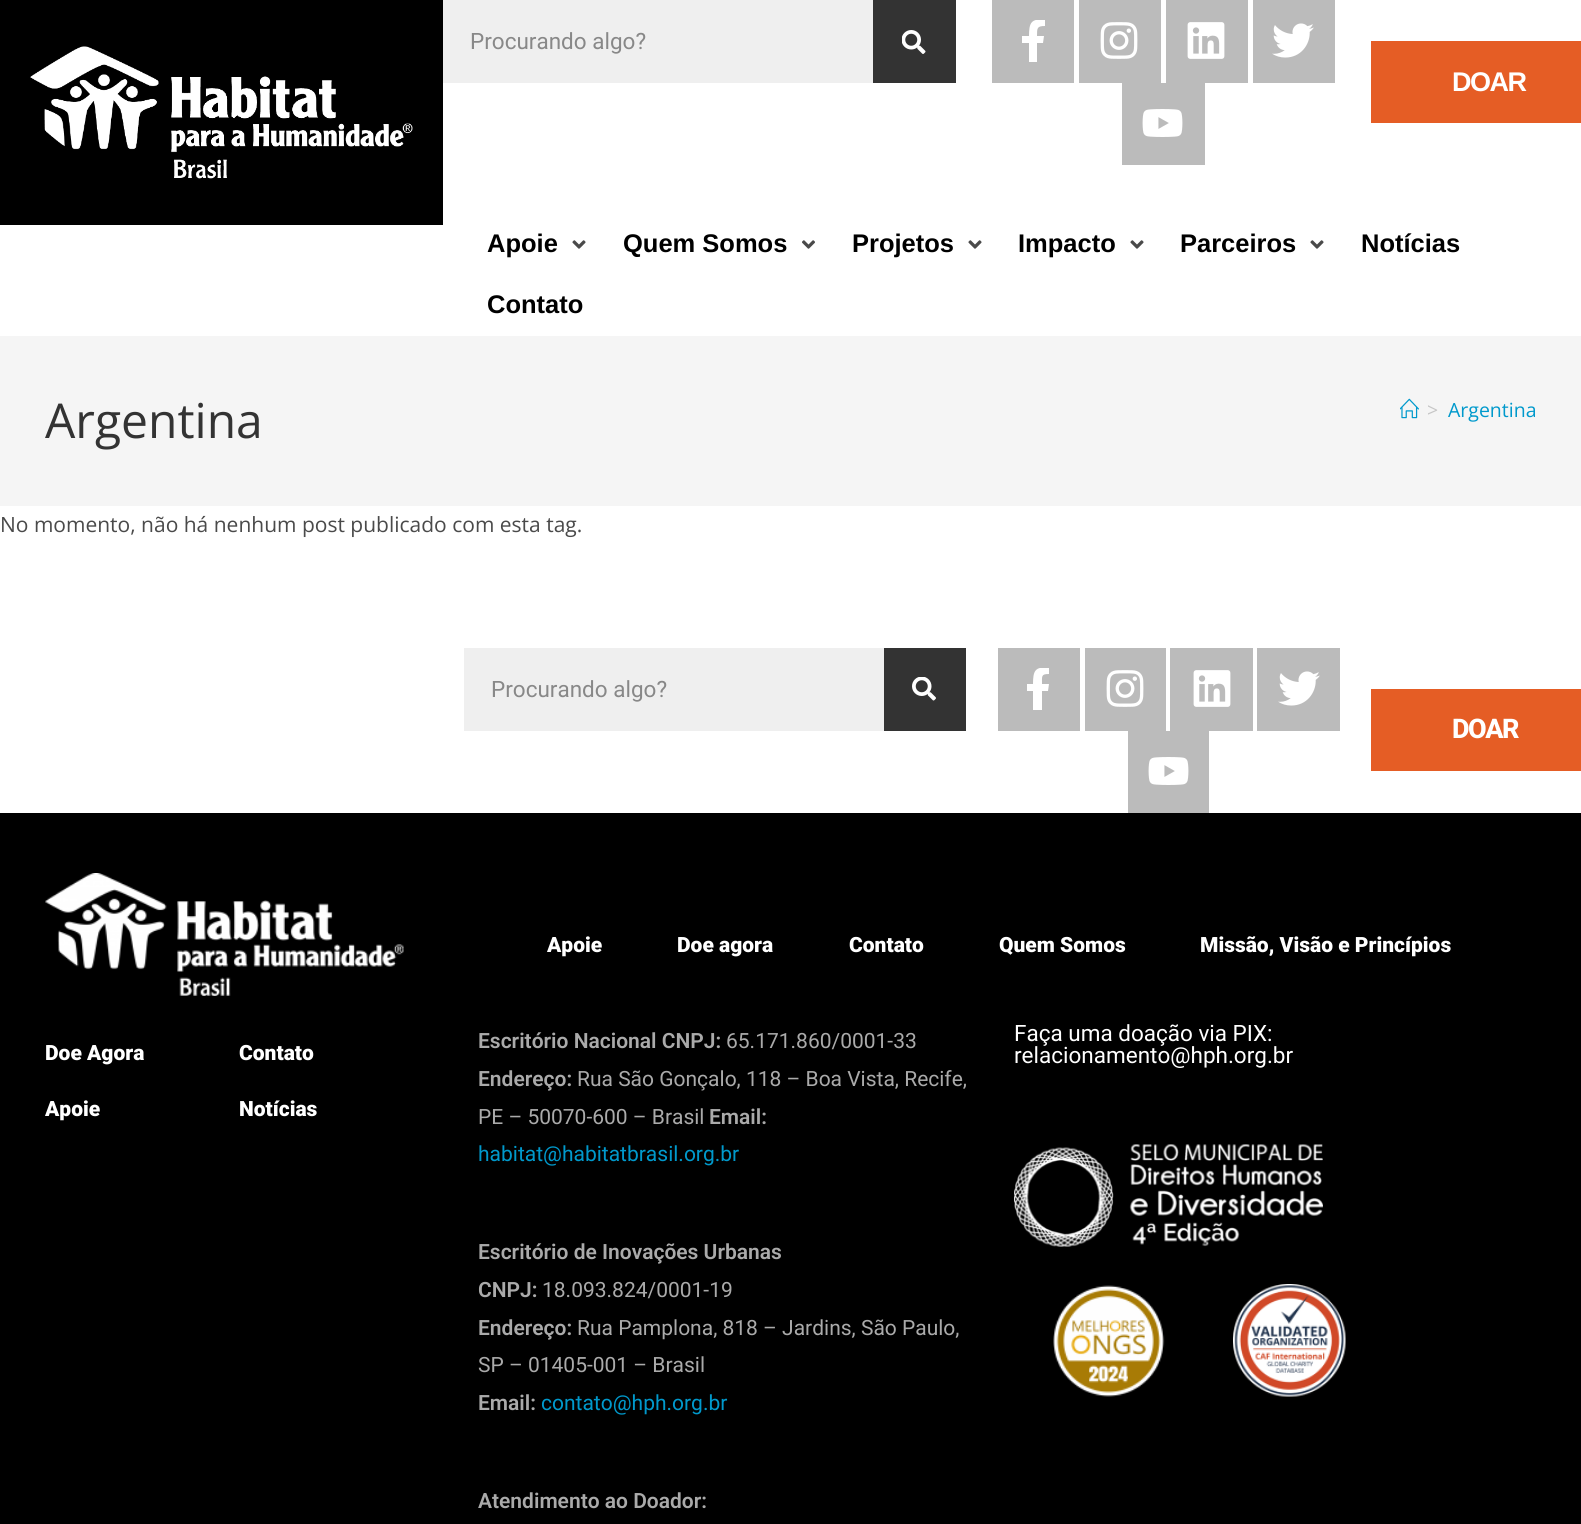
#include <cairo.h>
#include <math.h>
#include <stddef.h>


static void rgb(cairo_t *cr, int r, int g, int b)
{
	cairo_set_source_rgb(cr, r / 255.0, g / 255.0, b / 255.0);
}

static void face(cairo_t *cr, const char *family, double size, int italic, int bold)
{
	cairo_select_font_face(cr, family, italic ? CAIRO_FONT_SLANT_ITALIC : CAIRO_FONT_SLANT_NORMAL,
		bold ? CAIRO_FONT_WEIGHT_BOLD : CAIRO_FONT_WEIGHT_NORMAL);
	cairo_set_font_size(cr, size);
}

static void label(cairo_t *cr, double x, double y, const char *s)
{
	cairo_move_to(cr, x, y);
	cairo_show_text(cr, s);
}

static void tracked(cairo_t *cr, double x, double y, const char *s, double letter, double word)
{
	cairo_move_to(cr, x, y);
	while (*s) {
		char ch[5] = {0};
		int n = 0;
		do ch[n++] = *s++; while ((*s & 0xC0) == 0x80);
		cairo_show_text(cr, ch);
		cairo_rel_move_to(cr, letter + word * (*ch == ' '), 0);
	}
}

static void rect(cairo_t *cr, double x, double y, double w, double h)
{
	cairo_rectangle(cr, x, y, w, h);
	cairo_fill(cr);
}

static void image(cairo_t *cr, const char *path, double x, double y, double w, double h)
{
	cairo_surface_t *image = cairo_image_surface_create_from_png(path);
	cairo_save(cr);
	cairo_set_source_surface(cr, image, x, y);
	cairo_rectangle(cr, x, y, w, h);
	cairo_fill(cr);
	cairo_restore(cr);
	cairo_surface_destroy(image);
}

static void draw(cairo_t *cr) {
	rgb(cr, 255, 255, 255);
	cairo_paint(cr);
	rgb(cr, 0, 0, 0);
	rect(cr, 0, 0, 443, 225);
	image(cr, "image0.png", 30, 46, 383, 133);
	rgb(cr, 239, 239, 239);
	rect(cr, 443, 0, 430, 83);
	face(cr, "Roboto", 22.5, 0, 0);
	rgb(cr, 136, 136, 136);
	label(cr, 470, 49, "Procurando algo?");
	rgb(cr, 51, 51, 51);
	rect(cr, 873, 0, 83, 83);
	image(cr, "image1.png", 902, 30, 24, 24);
	rgb(cr, 187, 187, 187);
	rect(cr, 992, 0, 82, 83);
	cairo_save(cr);
	cairo_rectangle(cr, 1013, 20, 42, 42);
	cairo_clip(cr);
	rgb(cr, 255, 255, 255);
	cairo_new_path(cr);
	cairo_move_to(cr, 1043, 43);
	cairo_line_to(cr, 1044, 36);
	cairo_line_to(cr, 1037, 36);
	cairo_curve_to(cr, 1037, 28, 1037, 26, 1045, 26);
	cairo_line_to(cr, 1045, 20);
	cairo_curve_to(cr, 1031, 18, 1029, 23, 1029, 36);
	cairo_line_to(cr, 1022, 36);
	cairo_line_to(cr, 1022, 43);
	cairo_line_to(cr, 1029, 43);
	cairo_line_to(cr, 1029, 62);
	cairo_line_to(cr, 1037, 62);
	cairo_line_to(cr, 1037, 43);
	cairo_close_path(cr);
	cairo_fill(cr);
	cairo_restore(cr);
	rect(cr, 1079, 0, 82, 83);
	image(cr, "image2.png", 1100, 22, 38, 37);
	rect(cr, 1166, 0, 82, 83);
	image(cr, "image3.png", 1187, 22, 38, 37);
	rect(cr, 1253, 0, 82, 83);
	image(cr, "image4.png", 1272, 23, 42, 35);
	rect(cr, 1122, 83, 83, 82);
	image(cr, "image5.png", 1142, 109, 41, 28);
	rgb(cr, 229, 93, 37);
	rect(cr, 1371, 41, 210, 82);
	face(cr, "Liberation Sans", 27, 0, 1);
	rgb(cr, 255, 255, 255);
	tracked(cr, 1452, 91, "DOAR", -1.5, 0);
	face(cr, "Liberation Sans", 25.5, 0, 1);
	rgb(cr, 0, 0, 0);
	label(cr, 487, 252, "Apoie");
	image(cr, "image6.png", 572, 240, 14, 9);
	label(cr, 623, 252, "Quem Somos");
	image(cr, "image7.png", 802, 240, 13, 9);
	label(cr, 852, 252, "Projetos");
	image(cr, "image6.png", 968, 240, 14, 9);
	label(cr, 1018, 252, "Impacto");
	image(cr, "image6.png", 1130, 240, 14, 9);
	label(cr, 1180, 252, "Parceiros");
	image(cr, "image6.png", 1310, 240, 14, 9);
	label(cr, 1361, 252, "Notícias");
	label(cr, 487, 313, "Contato");
	rgb(cr, 245, 245, 245);
	rect(cr, 0, 336, 1581, 170);
	face(cr, "Open Sans", 48, 0, 0);
	rgb(cr, 51, 51, 51);
	label(cr, 45, 438, "Argentina");
	image(cr, "image8.png", 1400, 398, 19, 21);
	face(cr, "Open Sans", 19.5, 0, 0);
	rgb(cr, 198, 198, 198);
	label(cr, 1427, 417, ">");
	rgb(cr, 0, 153, 204);
	label(cr, 1448, 417, "Argentina");
	face(cr, "Open Sans", 21, 0, 0);
	rgb(cr, 74, 74, 74);
	label(cr, 0, 532, "No momento, não há nenhum post publicado com esta tag.");
	rgb(cr, 239, 239, 239);
	rect(cr, 464, 648, 420, 83);
	face(cr, "Roboto", 22.5, 0, 0);
	rgb(cr, 136, 136, 136);
	label(cr, 491, 697, "Procurando algo?");
	rgb(cr, 51, 51, 51);
	rect(cr, 884, 648, 82, 83);
	image(cr, "image9.png", 912, 677, 24, 24);
	rgb(cr, 187, 187, 187);
	rect(cr, 998, 648, 82, 83);
	cairo_save(cr);
	cairo_rectangle(cr, 1017, 668, 42, 42);
	cairo_clip(cr);
	rgb(cr, 255, 255, 255);
	cairo_new_path(cr);
	cairo_move_to(cr, 1048, 691);
	cairo_line_to(cr, 1049, 684);
	cairo_line_to(cr, 1042, 684);
	cairo_curve_to(cr, 1042, 676, 1041, 674, 1049, 674);
	cairo_line_to(cr, 1049, 668);
	cairo_curve_to(cr, 1035, 666, 1033, 671, 1033, 684);
	cairo_line_to(cr, 1027, 684);
	cairo_line_to(cr, 1027, 691);
	cairo_line_to(cr, 1033, 691);
	cairo_line_to(cr, 1033, 710);
	cairo_line_to(cr, 1042, 710);
	cairo_line_to(cr, 1042, 691);
	cairo_close_path(cr);
	cairo_fill(cr);
	cairo_restore(cr);
	rect(cr, 1085, 648, 81, 83);
	image(cr, "image2.png", 1106, 670, 38, 37);
	rect(cr, 1170, 648, 83, 83);
	image(cr, "image3.png", 1193, 670, 38, 37);
	rect(cr, 1257, 648, 83, 83);
	image(cr, "image4.png", 1278, 671, 42, 35);
	rect(cr, 1128, 731, 81, 82);
	image(cr, "image5.png", 1148, 757, 41, 28);
	rgb(cr, 229, 93, 37);
	rect(cr, 1371, 689, 210, 82);
	face(cr, "Roboto ExtraBold", 27, 0, 0);
	rgb(cr, 255, 255, 255);
	tracked(cr, 1452, 738, "DOAR", -1.5, 0);
	rgb(cr, 0, 0, 0);
	rect(cr, 0, 813, 1581, 711);
	image(cr, "image10.png", 45, 873, 359, 123);
	face(cr, "Roboto Black", 21, 0, 0);
	rgb(cr, 255, 255, 255);
	label(cr, 45, 1060, "Doe Agora");
	label(cr, 45, 1116, "Apoie");
	label(cr, 239, 1060, "Contato");
	label(cr, 239, 1116, "Notícias");
	label(cr, 547, 952, "Apoie");
	label(cr, 677, 952, "Doe agora");
	label(cr, 849, 952, "Contato");
	label(cr, 999, 952, "Quem Somos");
	label(cr, 1200, 952, "Missão, Visão e Princípios");
	face(cr, "Roboto SemiBold", 21, 0, 0);
	rgb(cr, 170, 170, 170);
	label(cr, 478, 1048, "Escritório Nacional CNPJ:");
	face(cr, "Roboto", 21, 0, 0);
	label(cr, 726, 1048, "65.171.860/0001-33");
	face(cr, "Roboto SemiBold", 21, 0, 0);
	label(cr, 478, 1086, "Endereço:");
	face(cr, "Roboto", 21, 0, 0);
	label(cr, 577, 1086, "Rua São Gonçalo, 118 – Boa Vista, Recife,");
	label(cr, 478, 1124, "PE – 50070-600 – Brasil");
	face(cr, "Roboto SemiBold", 21, 0, 0);
	label(cr, 709, 1124, "Email:");
	face(cr, "Roboto", 21, 0, 0);
	rgb(cr, 0, 153, 204);
	label(cr, 478, 1161, "habitat@habitatbrasil.org.br");
	face(cr, "Roboto SemiBold", 21, 0, 0);
	rgb(cr, 170, 170, 170);
	label(cr, 478, 1259, "Escritório de Inovações Urbanas");
	label(cr, 478, 1297, "CNPJ:");
	face(cr, "Roboto", 21, 0, 0);
	label(cr, 542, 1297, "18.093.824/0001-19");
	face(cr, "Roboto SemiBold", 21, 0, 0);
	label(cr, 478, 1335, "Endereço:");
	face(cr, "Roboto", 21, 0, 0);
	label(cr, 577, 1335, "Rua Pamplona, 818 – Jardins, São Paulo,");
	label(cr, 478, 1372, "SP – 01405-001 – Brasil");
	face(cr, "Roboto SemiBold", 21, 0, 0);
	label(cr, 478, 1410, "Email:");
	face(cr, "Roboto", 21, 0, 0);
	rgb(cr, 0, 153, 204);
	label(cr, 541, 1410, "contato@hph.org.br");
	face(cr, "Roboto SemiBold", 21, 0, 0);
	rgb(cr, 170, 170, 170);
	label(cr, 478, 1508, "Atendimento ao Doador:");
	face(cr, "Roboto", 22.5, 0, 0);
	rgb(cr, 255, 255, 255);
	label(cr, 1014, 1041, "Faça uma doação via PIX:");
	label(cr, 1014, 1063, "relacionamento@hph.org.br");
	image(cr, "image11.png", 1014, 1144, 309, 103);
	image(cr, "image12.png", 1053, 1285, 112, 112);
	image(cr, "image13.png", 1233, 1284, 113, 113);
}

int main(void) {
	cairo_surface_t *surface = cairo_image_surface_create(CAIRO_FORMAT_RGB24, 1581, 1524);
	cairo_t *cr = cairo_create(surface);
	cairo_font_options_t *options = cairo_font_options_create();
	cairo_font_options_set_hint_metrics(options, CAIRO_HINT_METRICS_OFF);
	cairo_font_options_set_hint_style(options, CAIRO_HINT_STYLE_NONE);
	cairo_set_font_options(cr, options);
	cairo_set_miter_limit(cr, 4);
	draw(cr);
	cairo_surface_write_to_png(surface, "render.png");
	cairo_font_options_destroy(options);
	cairo_destroy(cr);
	cairo_surface_destroy(surface);
	return 0;
}
